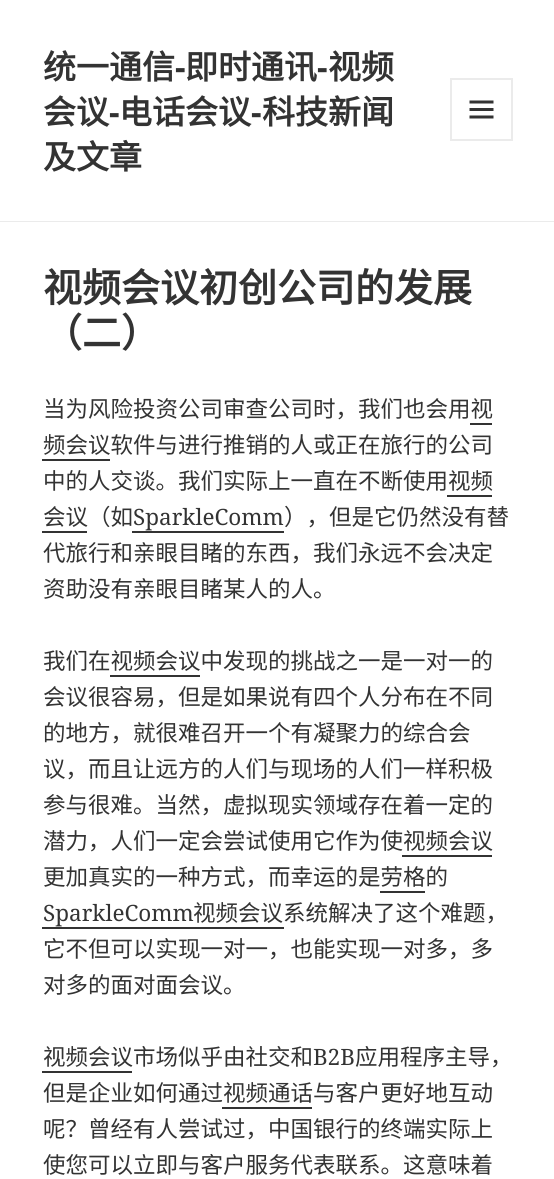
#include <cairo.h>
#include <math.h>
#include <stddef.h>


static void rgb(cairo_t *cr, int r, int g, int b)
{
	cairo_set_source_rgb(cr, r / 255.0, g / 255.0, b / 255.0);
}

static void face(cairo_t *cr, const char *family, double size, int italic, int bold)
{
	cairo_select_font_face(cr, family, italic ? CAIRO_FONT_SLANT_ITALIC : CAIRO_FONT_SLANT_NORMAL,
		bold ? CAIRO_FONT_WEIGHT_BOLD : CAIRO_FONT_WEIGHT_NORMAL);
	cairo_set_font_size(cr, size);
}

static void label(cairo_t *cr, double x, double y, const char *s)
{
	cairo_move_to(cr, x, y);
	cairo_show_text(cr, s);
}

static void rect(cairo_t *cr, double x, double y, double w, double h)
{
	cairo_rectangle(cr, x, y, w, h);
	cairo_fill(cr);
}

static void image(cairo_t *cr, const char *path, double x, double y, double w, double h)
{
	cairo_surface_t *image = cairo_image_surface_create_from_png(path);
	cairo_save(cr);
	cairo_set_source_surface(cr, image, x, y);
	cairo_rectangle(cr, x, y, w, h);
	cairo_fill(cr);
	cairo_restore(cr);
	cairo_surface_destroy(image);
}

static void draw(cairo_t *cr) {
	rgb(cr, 255, 255, 255);
	cairo_paint(cr);
	rgb(cr, 235, 235, 235);
	rect(cr, 0, 221, 554, 1);
	face(cr, "Noto Sans CJK SC", 33, 0, 1);
	rgb(cr, 51, 51, 51);
	label(cr, 43, 79, "统一通信");
	face(cr, "Noto Sans", 33, 0, 1);
	label(cr, 175, 79, "-");
	face(cr, "Noto Sans CJK SC", 33, 0, 1);
	label(cr, 185, 79, "即时通讯");
	face(cr, "Noto Sans", 33, 0, 1);
	label(cr, 317, 79, "-");
	face(cr, "Noto Sans CJK SC", 33, 0, 1);
	label(cr, 328, 79, "视频");
	label(cr, 43, 124, "会议");
	face(cr, "Noto Sans", 33, 0, 1);
	label(cr, 109, 124, "-");
	face(cr, "Noto Sans CJK SC", 33, 0, 1);
	label(cr, 119, 124, "电话会议");
	face(cr, "Noto Sans", 33, 0, 1);
	label(cr, 251, 124, "-");
	face(cr, "Noto Sans CJK SC", 33, 0, 1);
	label(cr, 262, 124, "科技新闻");
	label(cr, 43, 169, "及文章");
	cairo_rectangle(cr, 451, 79, 61, 61);
	rgb(cr, 235, 235, 235);
	cairo_stroke(cr);
	image(cr, "image0.png", 469, 100, 25, 19);
	face(cr, "Noto Sans CJK SC", 39, 0, 1);
	rgb(cr, 51, 51, 51);
	label(cr, 43, 302, "视频会议初创公司的发展");
	label(cr, 43, 347, "（二）");
	face(cr, "Noto Sans CJK SC", 22.5, 0, 0);
	label(cr, 43, 417, "当为风险投资公司审查公司时，我们也会用视");
	label(cr, 43, 453, "频会议软件与进行推销的人或正在旅行的公司");
	rect(cr, 470, 423, 22, 2);
	rect(cr, 42, 459, 68, 2);
	label(cr, 43, 489, "中的人交谈。我们实际上一直在不断使用视频");
	label(cr, 43, 525, "会议（如");
	rect(cr, 447, 495, 45, 2);
	rect(cr, 42, 531, 45, 2);
	face(cr, "Noto Serif", 22.5, 0, 0);
	label(cr, 133, 525, "SparkleComm");
	rect(cr, 132, 531, 152, 2);
	face(cr, "Noto Sans CJK SC", 22.5, 0, 0);
	label(cr, 284, 525, "），但是它仍然没有替");
	label(cr, 43, 561, "代旅行和亲眼目睹的东西，我们永远不会决定");
	label(cr, 43, 597, "资助没有亲眼目睹某人的人。");
	label(cr, 43, 669, "我们在视频会议中发现的挑战之一是一对一的");
	rect(cr, 110, 675, 90, 2);
	label(cr, 43, 705, "会议很容易，但是如果说有四个人分布在不同");
	label(cr, 43, 741, "的地方，就很难召开一个有凝聚力的综合会");
	label(cr, 43, 777, "议，而且让远方的人们与现场的人们一样积极");
	label(cr, 43, 813, "参与很难。当然，虚拟现实领域存在着一定的");
	label(cr, 43, 849, "潜力，人们一定会尝试使用它作为使视频会议");
	rect(cr, 402, 855, 90, 2);
	label(cr, 43, 885, "更加真实的一种方式，而幸运的是劳格的");
	rect(cr, 380, 891, 45, 2);
	face(cr, "Noto Serif", 22.5, 0, 0);
	label(cr, 43, 921, "SparkleComm");
	rect(cr, 42, 927, 242, 2);
	face(cr, "Noto Sans CJK SC", 22.5, 0, 0);
	label(cr, 193, 921, "视频会议系统解决了这个难题，");
	label(cr, 43, 957, "它不但可以实现一对一，也能实现一对多，多");
	label(cr, 43, 993, "对多的面对面会议。");
	label(cr, 43, 1065, "视频会议市场似乎由社交和");
	rect(cr, 42, 1071, 90, 2);
	face(cr, "Noto Serif", 22.5, 0, 0);
	label(cr, 313, 1065, "B2B");
	face(cr, "Noto Sans CJK SC", 22.5, 0, 0);
	label(cr, 355, 1065, "应用程序主导，");
	label(cr, 43, 1101, "但是企业如何通过视频通话与客户更好地互动");
	rect(cr, 222, 1107, 90, 2);
	label(cr, 43, 1137, "呢？曾经有人尝试过，中国银行的终端实际上");
	label(cr, 43, 1173, "使您可以立即与客户服务代表联系。这意味着");
}

int main(void) {
	cairo_surface_t *surface = cairo_image_surface_create(CAIRO_FORMAT_RGB24, 554, 1179);
	cairo_t *cr = cairo_create(surface);
	cairo_font_options_t *options = cairo_font_options_create();
	cairo_font_options_set_hint_metrics(options, CAIRO_HINT_METRICS_OFF);
	cairo_font_options_set_hint_style(options, CAIRO_HINT_STYLE_NONE);
	cairo_set_font_options(cr, options);
	cairo_set_miter_limit(cr, 4);
	draw(cr);
	cairo_surface_write_to_png(surface, "render.png");
	cairo_font_options_destroy(options);
	cairo_destroy(cr);
	cairo_surface_destroy(surface);
	return 0;
}
